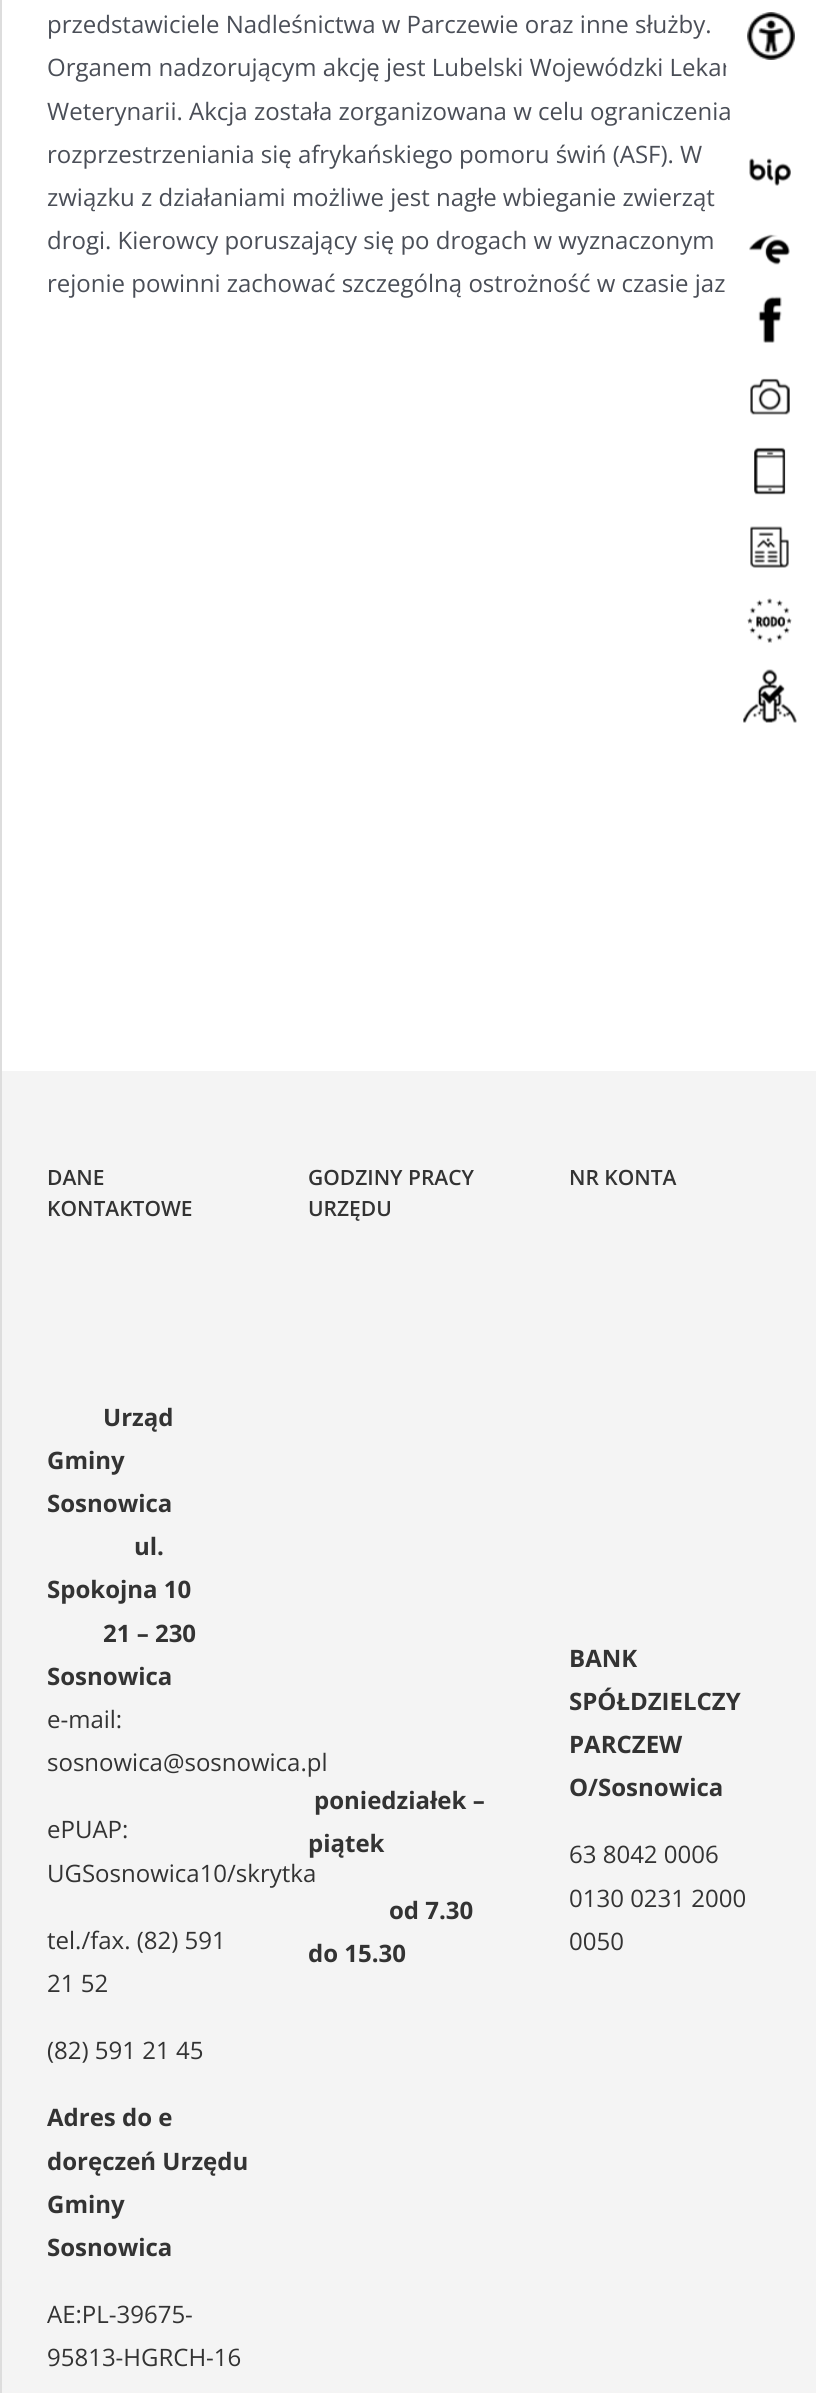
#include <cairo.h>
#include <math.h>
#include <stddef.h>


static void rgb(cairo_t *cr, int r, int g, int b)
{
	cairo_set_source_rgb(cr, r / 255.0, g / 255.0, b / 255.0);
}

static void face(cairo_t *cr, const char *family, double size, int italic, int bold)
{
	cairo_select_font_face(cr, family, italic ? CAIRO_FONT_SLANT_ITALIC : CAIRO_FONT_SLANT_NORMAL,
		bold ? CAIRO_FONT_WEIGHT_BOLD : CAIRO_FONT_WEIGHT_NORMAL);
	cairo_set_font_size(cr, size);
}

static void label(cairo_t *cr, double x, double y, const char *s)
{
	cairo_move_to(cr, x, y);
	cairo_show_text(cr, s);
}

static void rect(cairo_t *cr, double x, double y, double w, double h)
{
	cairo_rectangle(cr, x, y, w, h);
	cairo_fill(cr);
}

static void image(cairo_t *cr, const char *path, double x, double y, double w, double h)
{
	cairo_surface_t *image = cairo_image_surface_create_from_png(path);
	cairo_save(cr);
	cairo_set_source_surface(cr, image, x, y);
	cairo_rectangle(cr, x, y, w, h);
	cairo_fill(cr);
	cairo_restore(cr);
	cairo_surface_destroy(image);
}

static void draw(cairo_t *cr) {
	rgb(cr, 255, 255, 255);
	cairo_paint(cr);
	rgb(cr, 221, 221, 221);
	rect(cr, 0, 0, 2, 2393);
	face(cr, "Open Sans", 24, 0, 0);
	rgb(cr, 74, 78, 87);
	label(cr, 47, 33, "przedstawiciele Nadleśnictwa w Parczewie oraz inne służby.");
	label(cr, 47, 76, "Organem nadzorującym akcję jest Lubelski Wojewódzki Lekar");
	label(cr, 47, 120, "Weterynarii. Akcja została zorganizowana w celu ograniczenia");
	label(cr, 47, 163, "rozprzestrzeniania się afrykańskiego pomoru świń (ASF). W");
	label(cr, 47, 206, "związku z działaniami możliwe jest nagłe wbieganie zwierząt");
	label(cr, 47, 249, "drogi. Kierowcy poruszający się po drogach w wyznaczonym");
	label(cr, 47, 292, "rejonie powinni zachować szczególną ostrożność w czasie jaz");
	image(cr, "image0.png", 749, 158, 42, 28);
	image(cr, "image1.png", 749, 234, 41, 31);
	image(cr, "image2.png", 758, 296, 24, 47);
	image(cr, "image3.png", 750, 378, 40, 37);
	image(cr, "image4.png", 754, 447, 32, 48);
	image(cr, "image5.png", 750, 526, 39, 42);
	image(cr, "image6.png", 747, 598, 45, 45);
	image(cr, "image7.png", 743, 669, 54, 54);
	rgb(cr, 244, 244, 244);
	rect(cr, 2, 1071, 814, 1322);
	face(cr, "Open Sans SemiBold", 21, 0, 0);
	rgb(cr, 51, 51, 51);
	label(cr, 47, 1185, "DANE");
	label(cr, 47, 1216, "KONTAKTOWE");
	face(cr, "Open Sans", 24, 0, 1);
	label(cr, 103, 1426, "Urząd");
	label(cr, 47, 1469, "Gminy");
	label(cr, 47, 1512, "Sosnowica");
	label(cr, 134, 1555, "ul.");
	label(cr, 47, 1598, "Spokojna 10");
	label(cr, 103, 1642, "21 – 230");
	label(cr, 47, 1685, "Sosnowica");
	face(cr, "Open Sans", 24, 0, 0);
	label(cr, 47, 1728, "e-mail:");
	label(cr, 47, 1771, "sosnowica@sosnowica.pl");
	label(cr, 47, 1838, "ePUAP:");
	label(cr, 47, 1882, "UGSosnowica10/skrytka");
	label(cr, 47, 1949, "tel./fax. (82) 591");
	label(cr, 47, 1992, "21 52");
	label(cr, 47, 2059, "(82) 591 21 45");
	face(cr, "Open Sans", 24, 0, 1);
	label(cr, 47, 2126, "Adres do e");
	label(cr, 47, 2170, "doręczeń Urzędu");
	label(cr, 47, 2213, "Gminy");
	label(cr, 47, 2256, "Sosnowica");
	face(cr, "Open Sans", 24, 0, 0);
	label(cr, 47, 2323, "AE:PL-39675-");
	label(cr, 47, 2366, "95813-HGRCH-16");
	face(cr, "Open Sans SemiBold", 21, 0, 0);
	label(cr, 308, 1185, "GODZINY PRACY");
	label(cr, 308, 1216, "URZĘDU");
	face(cr, "Open Sans", 24, 0, 1);
	label(cr, 314, 1809, "poniedziałek –");
	label(cr, 308, 1852, "piątek");
	label(cr, 389, 1919, "od 7.30");
	label(cr, 308, 1962, "do 15.30");
	face(cr, "Open Sans SemiBold", 21, 0, 0);
	label(cr, 569, 1185, "NR KONTA");
	face(cr, "Open Sans", 24, 0, 1);
	label(cr, 569, 1667, "BANK");
	label(cr, 569, 1710, "SPÓŁDZIELCZY");
	label(cr, 569, 1753, "PARCZEW");
	label(cr, 569, 1796, "O/Sosnowica");
	face(cr, "Open Sans", 24, 0, 0);
	label(cr, 569, 1863, "63 8042 0006");
	label(cr, 569, 1907, "0130 0231 2000");
	label(cr, 569, 1950, "0050");
	rgb(cr, 255, 255, 255);
	rect(cr, 726, 62, 5, 4);
	image(cr, "image8.png", 747, 12, 48, 48);
}

int main(void) {
	cairo_surface_t *surface = cairo_image_surface_create(CAIRO_FORMAT_RGB24, 816, 2393);
	cairo_t *cr = cairo_create(surface);
	cairo_font_options_t *options = cairo_font_options_create();
	cairo_font_options_set_hint_metrics(options, CAIRO_HINT_METRICS_OFF);
	cairo_font_options_set_hint_style(options, CAIRO_HINT_STYLE_NONE);
	cairo_set_font_options(cr, options);
	cairo_set_miter_limit(cr, 4);
	draw(cr);
	cairo_surface_write_to_png(surface, "render.png");
	cairo_font_options_destroy(options);
	cairo_destroy(cr);
	cairo_surface_destroy(surface);
	return 0;
}
